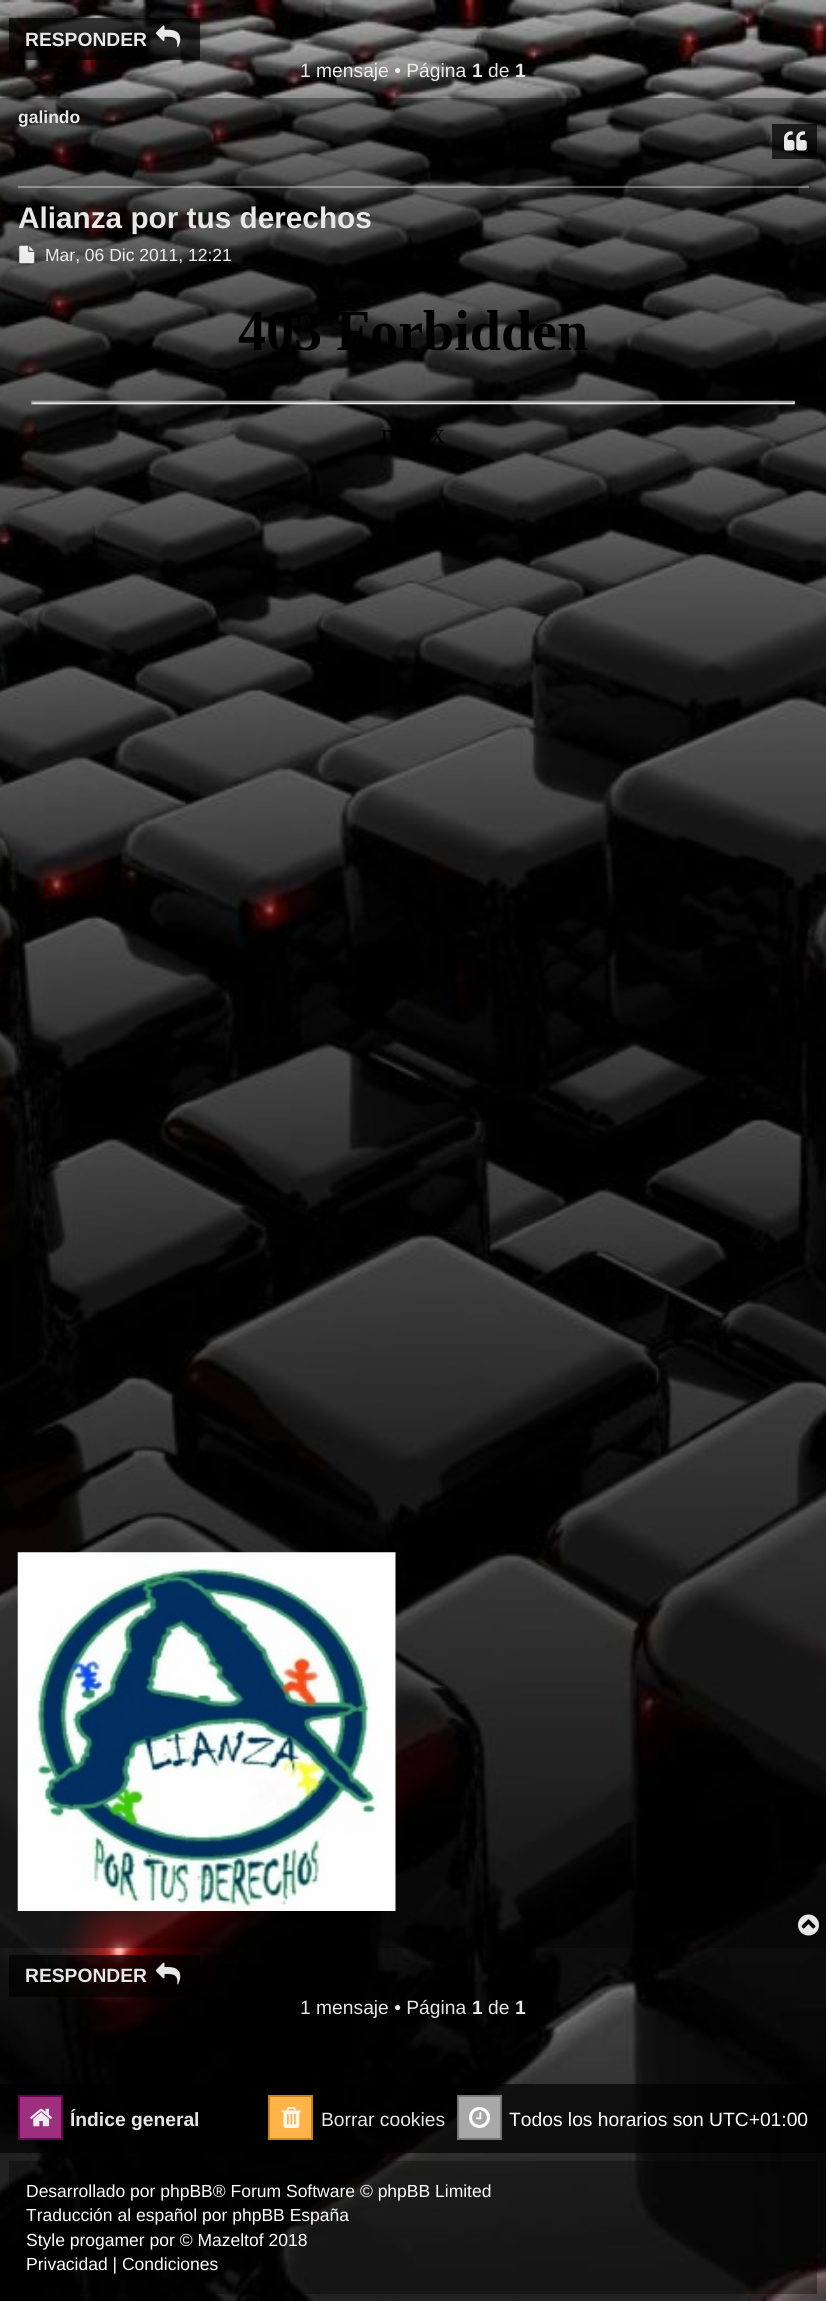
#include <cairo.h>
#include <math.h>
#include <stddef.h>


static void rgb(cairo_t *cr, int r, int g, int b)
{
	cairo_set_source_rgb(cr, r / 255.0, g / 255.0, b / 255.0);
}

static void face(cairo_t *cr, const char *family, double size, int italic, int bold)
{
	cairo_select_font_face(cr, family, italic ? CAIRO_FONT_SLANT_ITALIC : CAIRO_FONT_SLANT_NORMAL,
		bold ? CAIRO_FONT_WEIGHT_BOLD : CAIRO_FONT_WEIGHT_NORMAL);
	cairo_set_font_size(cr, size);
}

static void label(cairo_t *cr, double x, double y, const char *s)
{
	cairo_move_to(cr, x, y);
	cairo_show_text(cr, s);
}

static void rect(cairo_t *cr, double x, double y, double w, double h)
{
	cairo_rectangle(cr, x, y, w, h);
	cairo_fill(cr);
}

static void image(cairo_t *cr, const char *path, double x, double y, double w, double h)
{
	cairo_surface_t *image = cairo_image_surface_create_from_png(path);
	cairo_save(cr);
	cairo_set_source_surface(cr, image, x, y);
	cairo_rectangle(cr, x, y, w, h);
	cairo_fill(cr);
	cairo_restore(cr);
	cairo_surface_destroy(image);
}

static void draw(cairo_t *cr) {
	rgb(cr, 255, 255, 255);
	cairo_paint(cr);
	image(cr, "image0.png", 0, 2294, 826, 7);
	image(cr, "image1.png", 0, 0, 826, 2294);
	cairo_set_source_rgba(cr, 0, 0, 0, 0.7);
	rect(cr, 9, 18, 191, 42);
	face(cr, "Liberation Sans", 19.25, 0, 1);
	rgb(cr, 231, 231, 231);
	label(cr, 25, 46, "RESPONDER");
	image(cr, "image2.png", 155, 25, 26, 23);
	face(cr, "Liberation Sans", 19.25, 0, 0);
	rgb(cr, 238, 238, 238);
	label(cr, 300, 77, "1 mensaje • Página");
	face(cr, "Liberation Sans", 19.25, 0, 1);
	rgb(cr, 231, 231, 231);
	label(cr, 472, 77, "1");
	face(cr, "Liberation Sans", 19.25, 0, 0);
	label(cr, 488, 77, "de");
	face(cr, "Liberation Sans", 19.25, 0, 1);
	label(cr, 515, 77, "1");
	cairo_set_source_rgba(cr, 0, 0, 0, 0.35);
	rect(cr, 0, 98, 826, 1850);
	cairo_set_source_rgba(cr, 1, 1, 1, 0.35);
	rect(cr, 18, 186, 791, 2);
	face(cr, "Liberation Sans", 17.5, 0, 1);
	rgb(cr, 231, 231, 231);
	label(cr, 18, 123, "galindo");
	cairo_set_source_rgba(cr, 0, 0, 0, 0.7);
	rect(cr, 772, 124, 45, 35);
	image(cr, "image3.png", 784, 131, 23, 20);
	face(cr, "Liberation Sans", 29.75, 0, 1);
	rgb(cr, 231, 231, 231);
	label(cr, 18, 228, "Alianza por tus derechos");
	image(cr, "image4.png", 19, 245, 16, 19);
	face(cr, "Liberation Sans", 17.5, 0, 0);
	rgb(cr, 238, 238, 238);
	label(cr, 45, 261, "Mar, 06 Dic 2011, 12:21");
	image(cr, "image5.png", 31, 310, 764, 133);
	image(cr, "image6.png", 17, 1552, 379, 359);
	image(cr, "image7.png", 798, 1914, 21, 22);
	cairo_set_source_rgba(cr, 0, 0, 0, 0.7);
	rect(cr, 9, 1955, 191, 42);
	face(cr, "Liberation Sans", 19.25, 0, 1);
	rgb(cr, 231, 231, 231);
	label(cr, 25, 1982, "RESPONDER");
	image(cr, "image8.png", 155, 1962, 26, 23);
	face(cr, "Liberation Sans", 19.25, 0, 0);
	label(cr, 300, 2014, "1 mensaje • Página");
	face(cr, "Liberation Sans", 19.25, 0, 1);
	label(cr, 472, 2014, "1");
	face(cr, "Liberation Sans", 19.25, 0, 0);
	label(cr, 488, 2014, "de");
	face(cr, "Liberation Sans", 19.25, 0, 1);
	label(cr, 515, 2014, "1");
	cairo_set_source_rgba(cr, 0, 0, 0, 0.7);
	rect(cr, 0, 2084, 826, 69);
	rgb(cr, 156, 48, 127);
	cairo_rectangle(cr, 19, 2096, 43, 43);
	cairo_fill_preserve(cr);
	rgb(cr, 106, 0, 77);
	cairo_stroke(cr);
	image(cr, "image9.png", 30, 2108, 23, 19);
	rgb(cr, 231, 231, 231);
	label(cr, 70, 2126, "Índice general");
	rgb(cr, 255, 180, 74);
	cairo_rectangle(cr, 269, 2096, 43, 43);
	cairo_fill_preserve(cr);
	rgb(cr, 205, 130, 24);
	cairo_stroke(cr);
	image(cr, "image10.png", 281, 2107, 20, 21);
	face(cr, "Liberation Sans", 19.25, 0, 0);
	rgb(cr, 231, 231, 231);
	label(cr, 321, 2126, "Borrar cookies");
	rgb(cr, 168, 168, 168);
	cairo_rectangle(cr, 458, 2096, 43, 43);
	cairo_fill_preserve(cr);
	rgb(cr, 118, 118, 118);
	cairo_stroke(cr);
	image(cr, "image11.png", 469, 2107, 21, 21);
	rgb(cr, 255, 255, 255);
	label(cr, 509, 2126, "Todos los horarios son UTC+01:00");
	cairo_set_source_rgba(cr, 0, 0, 0, 0.35);
	rect(cr, 9, 2161, 808, 133);
	face(cr, "Liberation Sans", 17.5, 0, 0);
	rgb(cr, 255, 255, 255);
	label(cr, 26, 2197, "Desarrollado por phpBB® Forum Software © phpBB Limited");
	label(cr, 26, 2221, "Traducción al español por phpBB España");
	label(cr, 26, 2246, "Style progamer por © Mazeltof 2018");
	label(cr, 26, 2270, "Privacidad | Condiciones");
}

int main(void) {
	cairo_surface_t *surface = cairo_image_surface_create(CAIRO_FORMAT_RGB24, 826, 2301);
	cairo_t *cr = cairo_create(surface);
	cairo_font_options_t *options = cairo_font_options_create();
	cairo_font_options_set_hint_metrics(options, CAIRO_HINT_METRICS_OFF);
	cairo_font_options_set_hint_style(options, CAIRO_HINT_STYLE_NONE);
	cairo_set_font_options(cr, options);
	cairo_set_miter_limit(cr, 4);
	draw(cr);
	cairo_surface_write_to_png(surface, "render.png");
	cairo_font_options_destroy(options);
	cairo_destroy(cr);
	cairo_surface_destroy(surface);
	return 0;
}
